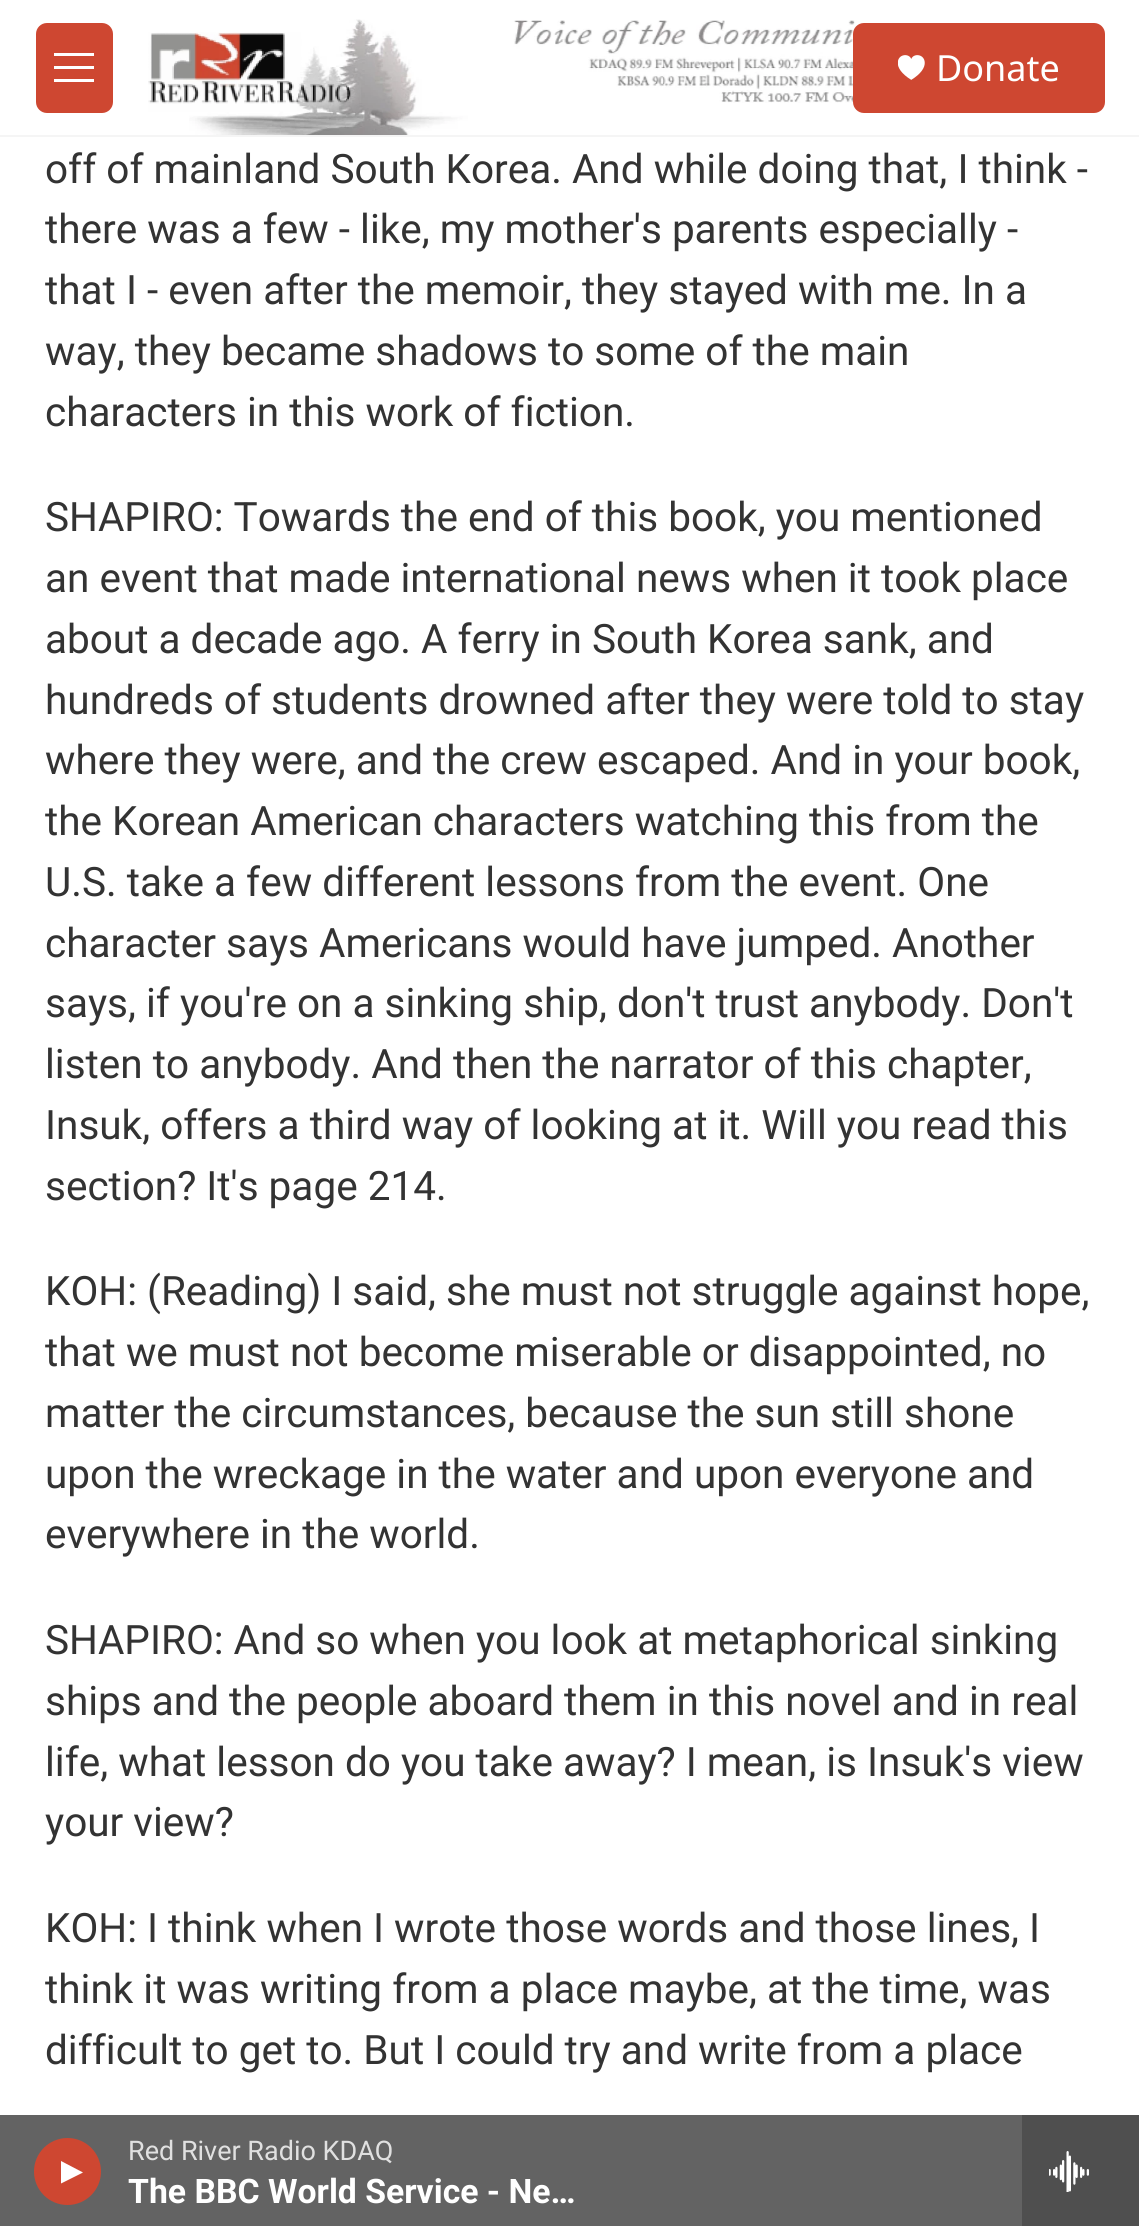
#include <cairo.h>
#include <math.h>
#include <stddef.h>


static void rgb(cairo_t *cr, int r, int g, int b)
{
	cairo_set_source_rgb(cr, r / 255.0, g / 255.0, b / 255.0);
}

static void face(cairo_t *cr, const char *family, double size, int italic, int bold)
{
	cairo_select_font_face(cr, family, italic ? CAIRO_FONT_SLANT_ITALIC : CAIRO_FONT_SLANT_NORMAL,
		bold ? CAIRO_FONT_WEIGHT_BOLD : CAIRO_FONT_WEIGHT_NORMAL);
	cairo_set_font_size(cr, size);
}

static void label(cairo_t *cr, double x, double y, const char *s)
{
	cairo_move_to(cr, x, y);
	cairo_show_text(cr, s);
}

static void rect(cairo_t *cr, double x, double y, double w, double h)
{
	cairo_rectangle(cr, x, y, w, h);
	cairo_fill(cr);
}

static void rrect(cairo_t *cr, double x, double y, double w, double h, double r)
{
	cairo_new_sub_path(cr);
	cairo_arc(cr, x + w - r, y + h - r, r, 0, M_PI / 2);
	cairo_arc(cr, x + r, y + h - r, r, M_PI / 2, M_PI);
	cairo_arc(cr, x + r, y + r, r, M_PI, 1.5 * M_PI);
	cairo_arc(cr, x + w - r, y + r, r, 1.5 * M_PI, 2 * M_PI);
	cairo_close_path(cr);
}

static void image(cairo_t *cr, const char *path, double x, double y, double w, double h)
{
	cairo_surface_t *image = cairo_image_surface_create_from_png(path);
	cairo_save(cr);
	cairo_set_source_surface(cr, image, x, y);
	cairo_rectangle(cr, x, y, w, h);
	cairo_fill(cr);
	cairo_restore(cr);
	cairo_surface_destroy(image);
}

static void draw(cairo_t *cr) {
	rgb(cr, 255, 255, 255);
	cairo_paint(cr);
	rgb(cr, 245, 245, 245);
	rect(cr, 0, 135, 1139, 2);
	image(cr, "image0.png", 189, 19, 696, 116);
	rgb(cr, 206, 71, 49);
	rrect(cr, 36, 23, 77, 90, 11);
	cairo_fill(cr);
	rgb(cr, 255, 255, 255);
	cairo_set_fill_rule(cr, CAIRO_FILL_RULE_EVEN_ODD);
	cairo_new_path(cr);
	cairo_move_to(cr, 54, 69);
	cairo_line_to(cr, 54, 66);
	cairo_line_to(cr, 94, 66);
	cairo_line_to(cr, 94, 69);
	cairo_close_path(cr);
	cairo_move_to(cr, 54, 56);
	cairo_line_to(cr, 54, 53);
	cairo_line_to(cr, 94, 53);
	cairo_line_to(cr, 94, 56);
	cairo_close_path(cr);
	cairo_move_to(cr, 54, 82);
	cairo_line_to(cr, 54, 79);
	cairo_line_to(cr, 94, 79);
	cairo_line_to(cr, 94, 82);
	cairo_close_path(cr);
	cairo_fill(cr);
	image(cr, "image1.png", 148, 32, 213, 80);
	rgb(cr, 206, 71, 49);
	rrect(cr, 853, 23, 252, 90, 11);
	cairo_fill(cr);
	image(cr, "image2.png", 898, 55, 27, 25);
	face(cr, "Noto Sans", 36, 0, 0);
	rgb(cr, 255, 255, 255);
	label(cr, 936, 81, "Donate");
	rgb(cr, 99, 99, 99);
	rect(cr, 0, 2115, 1022, 111);
	rgb(cr, 206, 71, 49);
	cairo_new_path(cr);
	cairo_arc(cr, 67.5, 2171.5, 33.5, 0, 2 * M_PI);
	cairo_fill(cr);
	rgb(cr, 255, 255, 255);
	cairo_set_fill_rule(cr, CAIRO_FILL_RULE_WINDING);
	cairo_new_path(cr);
	cairo_move_to(cr, 61, 2161);
	cairo_line_to(cr, 83, 2172.5);
	cairo_line_to(cr, 61, 2183.5);
	cairo_close_path(cr);
	cairo_fill(cr);
	face(cr, "Roboto", 27, 0, 0);
	rgb(cr, 224, 224, 224);
	label(cr, 128, 2160, "Red River Radio KDAQ");
	face(cr, "Roboto", 33.75, 0, 1);
	rgb(cr, 255, 255, 255);
	label(cr, 128, 2203, "The BBC World Service - Ne…");
	rgb(cr, 79, 79, 79);
	rect(cr, 1022, 2115, 117, 111);
	image(cr, "image3.png", 1049, 2151, 40, 41);
	face(cr, "Roboto", 40.5, 0, 0);
	rgb(cr, 51, 51, 51);
	label(cr, 45, 183, "off of mainland South Korea. And while doing that, I think -");
	label(cr, 45, 243, "there was a few - like, my mother's parents especially -");
	label(cr, 45, 304, "that I - even after the memoir, they stayed with me. In a");
	label(cr, 45, 365, "way, they became shadows to some of the main");
	label(cr, 45, 426, "characters in this work of fiction.");
	label(cr, 45, 531, "SHAPIRO: Towards the end of this book, you mentioned");
	label(cr, 45, 592, "an event that made international news when it took place");
	label(cr, 45, 653, "about a decade ago. A ferry in South Korea sank, and");
	label(cr, 45, 714, "hundreds of students drowned after they were told to stay");
	label(cr, 45, 774, "where they were, and the crew escaped. And in your book,");
	label(cr, 45, 835, "the Korean American characters watching this from the");
	label(cr, 45, 896, "U.S. take a few different lessons from the event. One");
	label(cr, 45, 957, "character says Americans would have jumped. Another");
	label(cr, 45, 1017, "says, if you're on a sinking ship, don't trust anybody. Don't");
	label(cr, 45, 1078, "listen to anybody. And then the narrator of this chapter,");
	label(cr, 45, 1139, "Insuk, offers a third way of looking at it. Will you read this");
	label(cr, 45, 1200, "section? It's page 214.");
	label(cr, 45, 1305, "KOH: (Reading) I said, she must not struggle against hope,");
	label(cr, 45, 1366, "that we must not become miserable or disappointed, no");
	label(cr, 45, 1427, "matter the circumstances, because the sun still shone");
	label(cr, 45, 1488, "upon the wreckage in the water and upon everyone and");
	label(cr, 45, 1548, "everywhere in the world.");
	label(cr, 45, 1654, "SHAPIRO: And so when you look at metaphorical sinking");
	label(cr, 45, 1715, "ships and the people aboard them in this novel and in real");
	label(cr, 45, 1776, "life, what lesson do you take away? I mean, is Insuk's view");
	label(cr, 45, 1836, "your view?");
	label(cr, 45, 1942, "KOH: I think when I wrote those words and those lines, I");
	label(cr, 45, 2003, "think it was writing from a place maybe, at the time, was");
	label(cr, 45, 2064, "difficult to get to. But I could try and write from a place");
}

int main(void) {
	cairo_surface_t *surface = cairo_image_surface_create(CAIRO_FORMAT_RGB24, 1139, 2226);
	cairo_t *cr = cairo_create(surface);
	cairo_font_options_t *options = cairo_font_options_create();
	cairo_font_options_set_hint_metrics(options, CAIRO_HINT_METRICS_OFF);
	cairo_font_options_set_hint_style(options, CAIRO_HINT_STYLE_NONE);
	cairo_set_font_options(cr, options);
	cairo_set_miter_limit(cr, 4);
	draw(cr);
	cairo_surface_write_to_png(surface, "render.png");
	cairo_font_options_destroy(options);
	cairo_destroy(cr);
	cairo_surface_destroy(surface);
	return 0;
}
